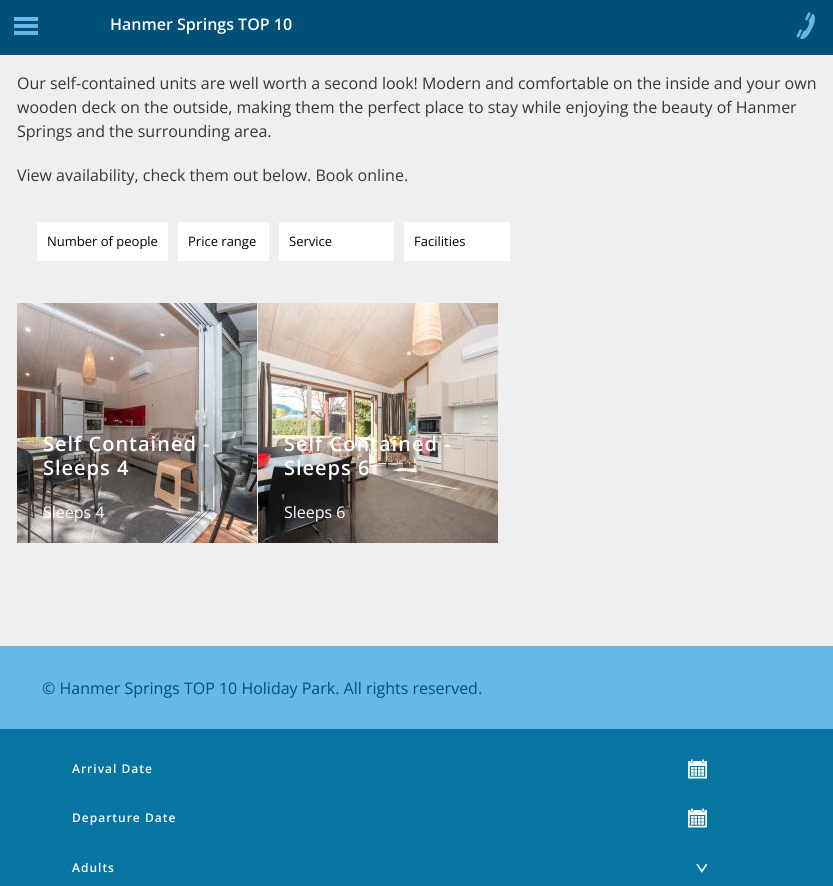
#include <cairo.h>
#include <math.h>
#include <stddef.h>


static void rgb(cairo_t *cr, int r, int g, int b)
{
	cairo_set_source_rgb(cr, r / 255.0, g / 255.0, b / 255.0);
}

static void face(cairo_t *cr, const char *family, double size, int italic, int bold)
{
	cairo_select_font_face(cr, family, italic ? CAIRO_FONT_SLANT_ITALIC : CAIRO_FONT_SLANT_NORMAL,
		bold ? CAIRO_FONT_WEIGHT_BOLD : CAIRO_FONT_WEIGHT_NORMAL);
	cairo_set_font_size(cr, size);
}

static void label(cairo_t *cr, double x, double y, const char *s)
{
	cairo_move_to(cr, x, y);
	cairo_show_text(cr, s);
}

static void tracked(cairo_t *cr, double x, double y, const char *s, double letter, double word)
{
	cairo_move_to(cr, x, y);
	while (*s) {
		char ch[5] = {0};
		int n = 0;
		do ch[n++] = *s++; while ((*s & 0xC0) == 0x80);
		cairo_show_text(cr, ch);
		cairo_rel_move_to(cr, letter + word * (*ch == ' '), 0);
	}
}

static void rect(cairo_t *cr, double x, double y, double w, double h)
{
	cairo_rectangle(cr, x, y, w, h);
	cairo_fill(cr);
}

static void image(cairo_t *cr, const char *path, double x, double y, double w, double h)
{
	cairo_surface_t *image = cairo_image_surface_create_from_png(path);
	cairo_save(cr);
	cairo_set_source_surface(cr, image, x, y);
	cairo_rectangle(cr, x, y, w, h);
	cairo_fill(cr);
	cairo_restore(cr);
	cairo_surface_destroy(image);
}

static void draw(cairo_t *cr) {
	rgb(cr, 239, 239, 240);
	cairo_paint(cr);
	rgb(cr, 0, 80, 119);
	rect(cr, 0, 0, 833, 55);
	image(cr, "image0.png", 14, 17, 24, 18);
	face(cr, "Open Sans SemiBold", 16, 0, 0);
	rgb(cr, 255, 255, 255);
	label(cr, 110, 30, "Hanmer Springs TOP 10");
	image(cr, "image1.png", 796, 12, 19, 27);
	face(cr, "Open Sans", 16, 0, 0);
	rgb(cr, 54, 54, 54);
	label(cr, 17, 89, "Our self-contained units are well worth a second look! Modern and comfortable on the inside and your own");
	label(cr, 17, 113, "wooden deck on the outside, making them the perfect place to stay while enjoying the beauty of Hanmer");
	label(cr, 17, 137, "Springs and the surrounding area.");
	label(cr, 17, 181, "View availability, check them out below. Book online.");
	rgb(cr, 255, 255, 255);
	rect(cr, 37, 222, 131, 39);
	face(cr, "Open Sans", 13, 0, 0);
	rgb(cr, 0, 0, 0);
	label(cr, 47, 246, "Number of people");
	rgb(cr, 255, 255, 255);
	rect(cr, 178, 222, 91, 39);
	rgb(cr, 0, 0, 0);
	label(cr, 188, 246, "Price range");
	rgb(cr, 255, 255, 255);
	rect(cr, 279, 222, 115, 39);
	rgb(cr, 0, 0, 0);
	label(cr, 289, 246, "Service");
	rgb(cr, 255, 255, 255);
	rect(cr, 404, 222, 106, 39);
	rgb(cr, 0, 0, 0);
	label(cr, 414, 246, "Facilities");
	image(cr, "image2.png", 17, 303, 240, 240);
	face(cr, "Open Sans SemiBold", 20, 0, 0);
	rgb(cr, 255, 255, 255);
	tracked(cr, 43, 451, "Self Contained -", 1, 0);
	tracked(cr, 43, 475, "Sleeps 4", 1, 0);
	face(cr, "Open Sans", 16, 0, 0);
	label(cr, 43, 518, "Sleeps 4");
	image(cr, "image3.png", 258, 303, 240, 240);
	face(cr, "Open Sans SemiBold", 20, 0, 0);
	tracked(cr, 284, 451, "Self Contained -", 1, 0);
	tracked(cr, 284, 475, "Sleeps 6", 1, 0);
	face(cr, "Open Sans", 16, 0, 0);
	label(cr, 284, 518, "Sleeps 6");
	rgb(cr, 7, 117, 162);
	rect(cr, 0, 729, 833, 157);
	image(cr, "image4.png", 688, 759, 19, 20);
	face(cr, "Open Sans SemiBold", 12, 0, 0);
	rgb(cr, 255, 255, 255);
	tracked(cr, 72, 773, "Arrival Date", 1, 0);
	image(cr, "image4.png", 688, 808, 19, 20);
	tracked(cr, 72, 822, "Departure Date", 1, 0);
	image(cr, "image5.png", 696, 864, 12, 9);
	tracked(cr, 72, 872, "Adults", 1, 0);
	rgb(cr, 103, 184, 230);
	rect(cr, 0, 646, 833, 83);
	face(cr, "Open Sans", 16, 0, 0);
	rgb(cr, 0, 80, 119);
	label(cr, 42, 694, "© Hanmer Springs TOP 10 Holiday Park. All rights reserved.");
}

int main(void) {
	cairo_surface_t *surface = cairo_image_surface_create(CAIRO_FORMAT_RGB24, 833, 886);
	cairo_t *cr = cairo_create(surface);
	cairo_font_options_t *options = cairo_font_options_create();
	cairo_font_options_set_hint_metrics(options, CAIRO_HINT_METRICS_OFF);
	cairo_font_options_set_hint_style(options, CAIRO_HINT_STYLE_NONE);
	cairo_set_font_options(cr, options);
	cairo_set_miter_limit(cr, 4);
	draw(cr);
	cairo_surface_write_to_png(surface, "render.png");
	cairo_font_options_destroy(options);
	cairo_destroy(cr);
	cairo_surface_destroy(surface);
	return 0;
}
